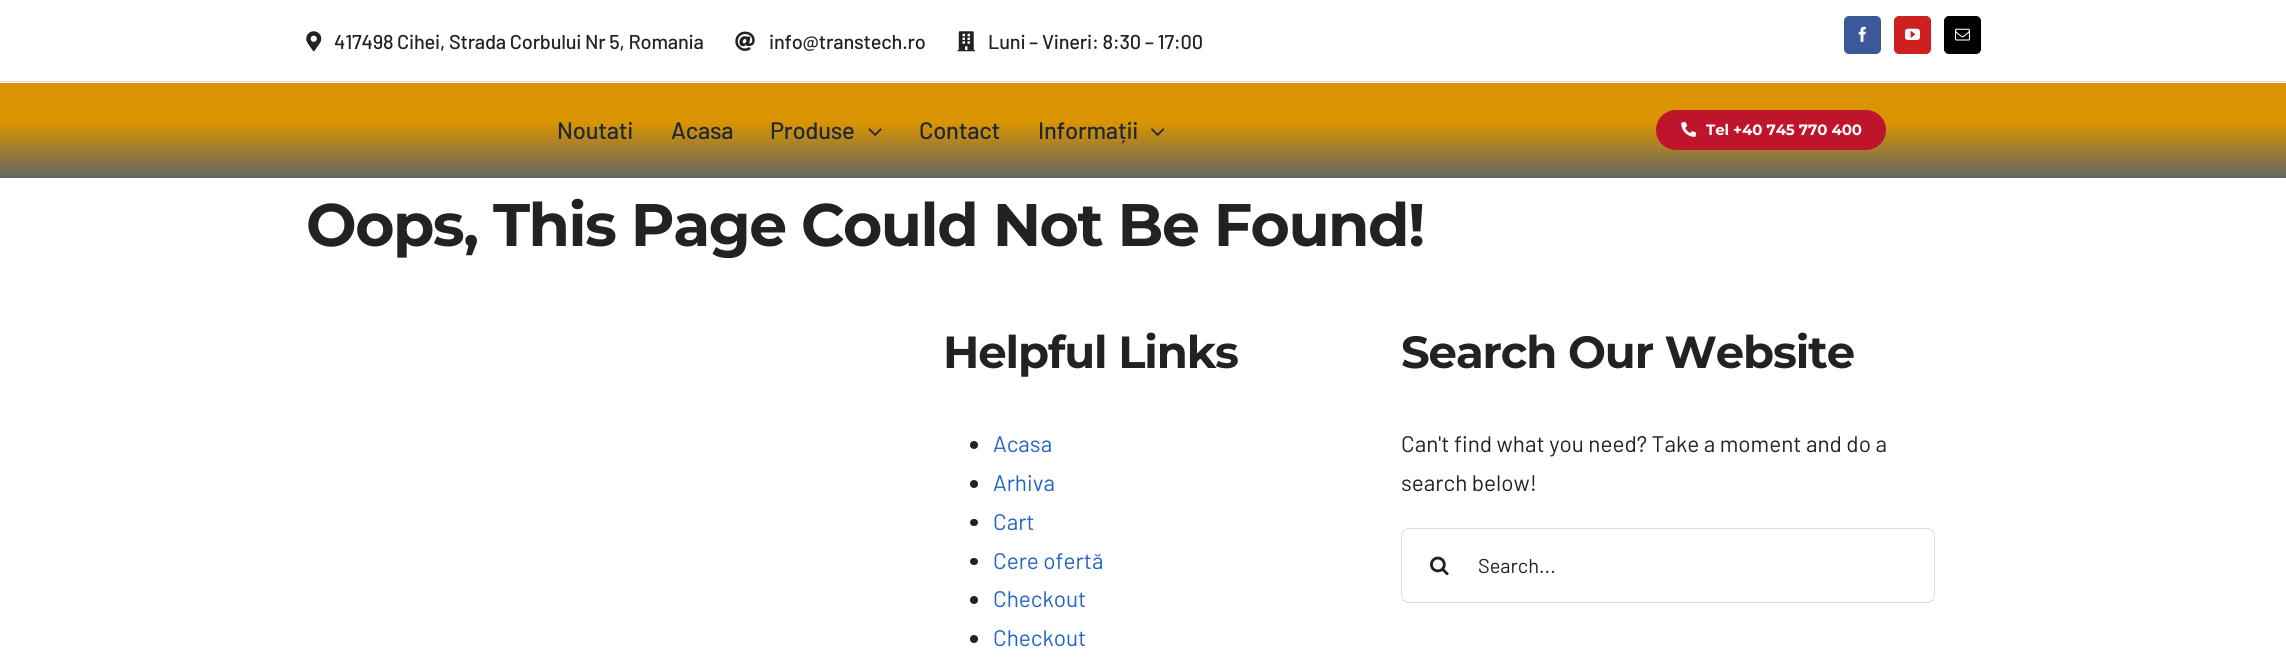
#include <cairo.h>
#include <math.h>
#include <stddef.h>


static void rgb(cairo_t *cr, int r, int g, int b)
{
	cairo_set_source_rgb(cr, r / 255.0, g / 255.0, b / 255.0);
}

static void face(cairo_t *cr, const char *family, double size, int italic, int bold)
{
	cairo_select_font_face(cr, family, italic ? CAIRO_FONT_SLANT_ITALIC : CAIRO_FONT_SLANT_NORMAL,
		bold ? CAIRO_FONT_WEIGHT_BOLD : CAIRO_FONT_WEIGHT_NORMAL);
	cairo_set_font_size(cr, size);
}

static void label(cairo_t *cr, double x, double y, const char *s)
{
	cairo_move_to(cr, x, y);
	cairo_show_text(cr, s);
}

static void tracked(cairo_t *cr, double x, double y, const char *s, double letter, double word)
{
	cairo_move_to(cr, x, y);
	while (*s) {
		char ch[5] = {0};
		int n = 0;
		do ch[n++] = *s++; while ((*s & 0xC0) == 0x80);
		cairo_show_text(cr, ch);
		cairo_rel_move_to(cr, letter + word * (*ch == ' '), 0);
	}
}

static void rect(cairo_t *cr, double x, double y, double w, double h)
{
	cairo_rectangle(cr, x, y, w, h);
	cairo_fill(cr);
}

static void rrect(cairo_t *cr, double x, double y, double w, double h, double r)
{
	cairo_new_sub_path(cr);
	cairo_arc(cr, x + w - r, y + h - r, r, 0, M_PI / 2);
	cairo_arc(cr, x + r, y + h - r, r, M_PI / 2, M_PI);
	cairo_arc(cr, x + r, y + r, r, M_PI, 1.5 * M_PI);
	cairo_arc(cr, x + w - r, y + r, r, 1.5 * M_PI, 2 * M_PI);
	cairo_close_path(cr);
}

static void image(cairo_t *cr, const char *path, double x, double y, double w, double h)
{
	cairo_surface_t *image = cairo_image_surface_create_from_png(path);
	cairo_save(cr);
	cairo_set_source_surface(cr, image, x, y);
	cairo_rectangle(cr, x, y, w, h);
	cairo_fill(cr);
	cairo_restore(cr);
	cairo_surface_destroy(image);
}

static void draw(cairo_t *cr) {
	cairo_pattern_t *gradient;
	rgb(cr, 255, 255, 255);
	cairo_paint(cr);
	rgb(cr, 219, 219, 219);
	rect(cr, 0, 81, 2286, 1);
	image(cr, "image0.png", 306, 31, 16, 21);
	face(cr, "Barlow Medium", 20, 0, 0);
	rgb(cr, 34, 34, 34);
	tracked(cr, 334, 49, "417498 Cihei, Strada Corbului Nr 5, Romania", -0.2, 0);
	image(cr, "image1.png", 735, 31, 20, 20);
	tracked(cr, 769, 49, "info@transtech.ro", -0.2, 0);
	image(cr, "image2.png", 957, 31, 18, 21);
	tracked(cr, 988, 49, "Luni – Vineri: 8:30 – 17:00", -0.2, 0);
	rgb(cr, 59, 89, 152);
	rrect(cr, 1844.5, 16.5, 36, 37, 4.5);
	cairo_fill_preserve(cr);
	cairo_set_line_width(cr, 1);
	cairo_stroke(cr);
	image(cr, "image3.png", 1858, 26, 8, 16);
	rgb(cr, 205, 32, 31);
	rrect(cr, 1894.5, 16.5, 36, 37, 4.5);
	cairo_fill_preserve(cr);
	cairo_stroke(cr);
	image(cr, "image4.png", 1905, 28, 15, 12);
	rgb(cr, 0, 0, 0);
	rrect(cr, 1944.5, 16.5, 36, 37, 4.5);
	cairo_fill_preserve(cr);
	cairo_stroke(cr);
	image(cr, "image5.png", 1955, 28, 15, 13);
	gradient = cairo_pattern_create_linear(1143, 82, 1143, 178);
	cairo_pattern_add_color_stop_rgba(gradient, 0.42, 0.851, 0.58, 0, 1);
	cairo_pattern_add_color_stop_rgba(gradient, 1, 0.4, 0.4, 0.4, 1);
	cairo_set_source(cr, gradient);
	cairo_pattern_destroy(gradient);
	rect(cr, 0, 83, 2286, 95);
	face(cr, "Barlow Medium", 23.75, 0, 0);
	rgb(cr, 32, 40, 51);
	tracked(cr, 557, 139, "Noutati", -0.25, 0);
	tracked(cr, 671, 139, "Acasa", -0.25, 0);
	tracked(cr, 770, 139, "Produse", -0.25, 0);
	image(cr, "image6.png", 868, 128, 14, 8);
	tracked(cr, 919, 139, "Contact", -0.25, 0);
	tracked(cr, 1038, 139, "Informații", -0.25, 0);
	image(cr, "image7.png", 1151, 128, 14, 8);
	rgb(cr, 190, 21, 44);
	rrect(cr, 1656, 110, 230, 40, 20);
	cairo_fill(cr);
	image(cr, "image8.png", 1681, 121, 16, 16);
	face(cr, "Montserrat Thin", 15, 0, 0);
	rgb(cr, 255, 255, 255);
	tracked(cr, 1706, 135, "Tel +40 745 770 400", -0.1, 0);
	face(cr, "Montserrat Thin", 60, 0, 0);
	rgb(cr, 34, 34, 34);
	tracked(cr, 306, 246, "Oops, This Page Could Not Be Found!", -1.5, 0);
	face(cr, "Montserrat Thin", 45, 0, 0);
	tracked(cr, 943, 368, "Helpful Links", -1.1, 0);
	cairo_new_path(cr);
	cairo_arc(cr, 974, 445, 4, 0, 2 * M_PI);
	cairo_fill(cr);
	face(cr, "Barlow", 22.5, 0, 0);
	rgb(cr, 35, 100, 196);
	label(cr, 993, 452, "Acasa");
	rgb(cr, 34, 34, 34);
	cairo_new_path(cr);
	cairo_arc(cr, 974, 484, 4, 0, 2 * M_PI);
	cairo_fill(cr);
	rgb(cr, 35, 100, 196);
	label(cr, 993, 491, "Arhiva");
	rgb(cr, 34, 34, 34);
	rrect(cr, 970, 519, 8, 7, 3.5);
	cairo_fill(cr);
	rgb(cr, 35, 100, 196);
	label(cr, 993, 530, "Cart");
	rgb(cr, 34, 34, 34);
	rrect(cr, 970, 558, 8, 7, 3.5);
	cairo_fill(cr);
	rgb(cr, 35, 100, 196);
	label(cr, 993, 569, "Cere ofertă");
	rgb(cr, 34, 34, 34);
	cairo_new_path(cr);
	cairo_arc(cr, 974, 600, 4, 0, 2 * M_PI);
	cairo_fill(cr);
	rgb(cr, 35, 100, 196);
	label(cr, 993, 607, "Checkout");
	rgb(cr, 34, 34, 34);
	cairo_new_path(cr);
	cairo_arc(cr, 974, 639, 4, 0, 2 * M_PI);
	cairo_fill(cr);
	rgb(cr, 35, 100, 196);
	label(cr, 993, 646, "Checkout");
	face(cr, "Montserrat Thin", 45, 0, 0);
	rgb(cr, 34, 34, 34);
	tracked(cr, 1401, 368, "Search Our Website", -1.1, 0);
	face(cr, "Barlow", 22.5, 0, 0);
	label(cr, 1401, 452, "Can't find what you need? Take a moment and do a");
	label(cr, 1401, 491, "search below!");
	rrect(cr, 1401.5, 528.5, 533, 74, 7.5);
	rgb(cr, 219, 219, 219);
	cairo_stroke(cr);
	image(cr, "image9.png", 1430, 556, 19, 20);
	face(cr, "Barlow", 20, 0, 0);
	rgb(cr, 34, 34, 34);
	label(cr, 1478, 573, "Search...");
}

int main(void) {
	cairo_surface_t *surface = cairo_image_surface_create(CAIRO_FORMAT_RGB24, 2286, 672);
	cairo_t *cr = cairo_create(surface);
	cairo_font_options_t *options = cairo_font_options_create();
	cairo_font_options_set_hint_metrics(options, CAIRO_HINT_METRICS_OFF);
	cairo_font_options_set_hint_style(options, CAIRO_HINT_STYLE_NONE);
	cairo_set_font_options(cr, options);
	cairo_set_miter_limit(cr, 4);
	draw(cr);
	cairo_surface_write_to_png(surface, "render.png");
	cairo_font_options_destroy(options);
	cairo_destroy(cr);
	cairo_surface_destroy(surface);
	return 0;
}
